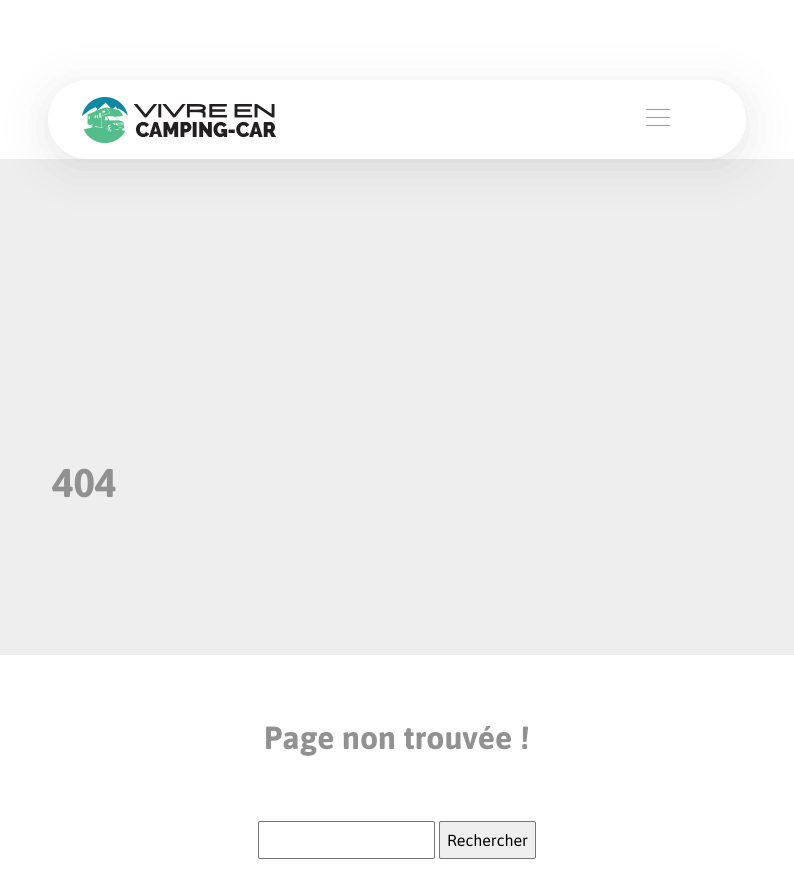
#include <cairo.h>
#include <math.h>
#include <stddef.h>


static void rgb(cairo_t *cr, int r, int g, int b)
{
	cairo_set_source_rgb(cr, r / 255.0, g / 255.0, b / 255.0);
}

static void face(cairo_t *cr, const char *family, double size, int italic, int bold)
{
	cairo_select_font_face(cr, family, italic ? CAIRO_FONT_SLANT_ITALIC : CAIRO_FONT_SLANT_NORMAL,
		bold ? CAIRO_FONT_WEIGHT_BOLD : CAIRO_FONT_WEIGHT_NORMAL);
	cairo_set_font_size(cr, size);
}

static void label(cairo_t *cr, double x, double y, const char *s)
{
	cairo_move_to(cr, x, y);
	cairo_show_text(cr, s);
}

static void rect(cairo_t *cr, double x, double y, double w, double h)
{
	cairo_rectangle(cr, x, y, w, h);
	cairo_fill(cr);
}

static void rrect(cairo_t *cr, double x, double y, double w, double h, double r)
{
	cairo_new_sub_path(cr);
	cairo_arc(cr, x + w - r, y + h - r, r, 0, M_PI / 2);
	cairo_arc(cr, x + r, y + h - r, r, M_PI / 2, M_PI);
	cairo_arc(cr, x + r, y + r, r, M_PI, 1.5 * M_PI);
	cairo_arc(cr, x + w - r, y + r, r, 1.5 * M_PI, 2 * M_PI);
	cairo_close_path(cr);
}

static void soft_shadow(cairo_t *cr, double x, double y, double w, double h, double r, double blur, double alpha)
{
	cairo_push_group_with_content(cr, CAIRO_CONTENT_ALPHA);
	cairo_set_operator(cr, CAIRO_OPERATOR_SOURCE);
	for (int i = 15; i >= -15 && fmin(w, h) + blur * i / 3 > 0; i -= 2) {
		double e = blur * i / 6;
		cairo_set_source_rgba(cr, 0, 0, 0, alpha * erfc((i - 1) / 8.5) / 2);
		rrect(cr, x - e, y - e, w + 2 * e, h + 2 * e, fmax(0, fmin(r + e + blur * .6, fmin(w, h) / 2 + e)));
		cairo_fill(cr);
	}
	cairo_pattern_t *soft = cairo_pop_group(cr);
	cairo_mask(cr, soft);
	cairo_pattern_destroy(soft);
}

static void image(cairo_t *cr, const char *path, double x, double y, double w, double h)
{
	cairo_surface_t *image = cairo_image_surface_create_from_png(path);
	cairo_save(cr);
	cairo_set_source_surface(cr, image, x, y);
	cairo_rectangle(cr, x, y, w, h);
	cairo_fill(cr);
	cairo_restore(cr);
	cairo_surface_destroy(image);
}

static void draw(cairo_t *cr) {
	rgb(cr, 255, 255, 255);
	cairo_paint(cr);
	rgb(cr, 238, 238, 238);
	rect(cr, 0, 159, 794, 496);
	rgb(cr, 58, 58, 58);
	soft_shadow(cr, 48, 88, 698, 79, 39.5, 24, 0.12);
	rgb(cr, 255, 255, 255);
	rrect(cr, 48, 80, 698, 79, 39.5);
	cairo_fill(cr);
	image(cr, "image0.png", 82, 97, 194, 46);
	rgb(cr, 85, 196, 139);
	rect(cr, 646, 109, 24, 1);
	rect(cr, 646, 117, 24, 1);
	rect(cr, 646, 125, 24, 1);
	face(cr, "Asap", 40, 0, 1);
	rgb(cr, 145, 145, 145);
	label(cr, 52, 497, "404");
	face(cr, "Asap", 32, 0, 1);
	label(cr, 264, 749, "Page non trouvée !");
	rrect(cr, 258.5, 821.5, 176, 37, 1.5);
	rgb(cr, 118, 118, 118);
	cairo_set_line_width(cr, 1);
	cairo_stroke(cr);
	rgb(cr, 239, 239, 239);
	rrect(cr, 439.5, 821.5, 96, 37, 1.5);
	cairo_fill_preserve(cr);
	rgb(cr, 118, 118, 118);
	cairo_stroke(cr);
	face(cr, "Asap", 16, 0, 0);
	rgb(cr, 0, 0, 0);
	label(cr, 447, 846, "Rechercher");
}

int main(void) {
	cairo_surface_t *surface = cairo_image_surface_create(CAIRO_FORMAT_RGB24, 794, 880);
	cairo_t *cr = cairo_create(surface);
	cairo_font_options_t *options = cairo_font_options_create();
	cairo_font_options_set_hint_metrics(options, CAIRO_HINT_METRICS_OFF);
	cairo_font_options_set_hint_style(options, CAIRO_HINT_STYLE_NONE);
	cairo_set_font_options(cr, options);
	cairo_set_miter_limit(cr, 4);
	draw(cr);
	cairo_surface_write_to_png(surface, "render.png");
	cairo_font_options_destroy(options);
	cairo_destroy(cr);
	cairo_surface_destroy(surface);
	return 0;
}
